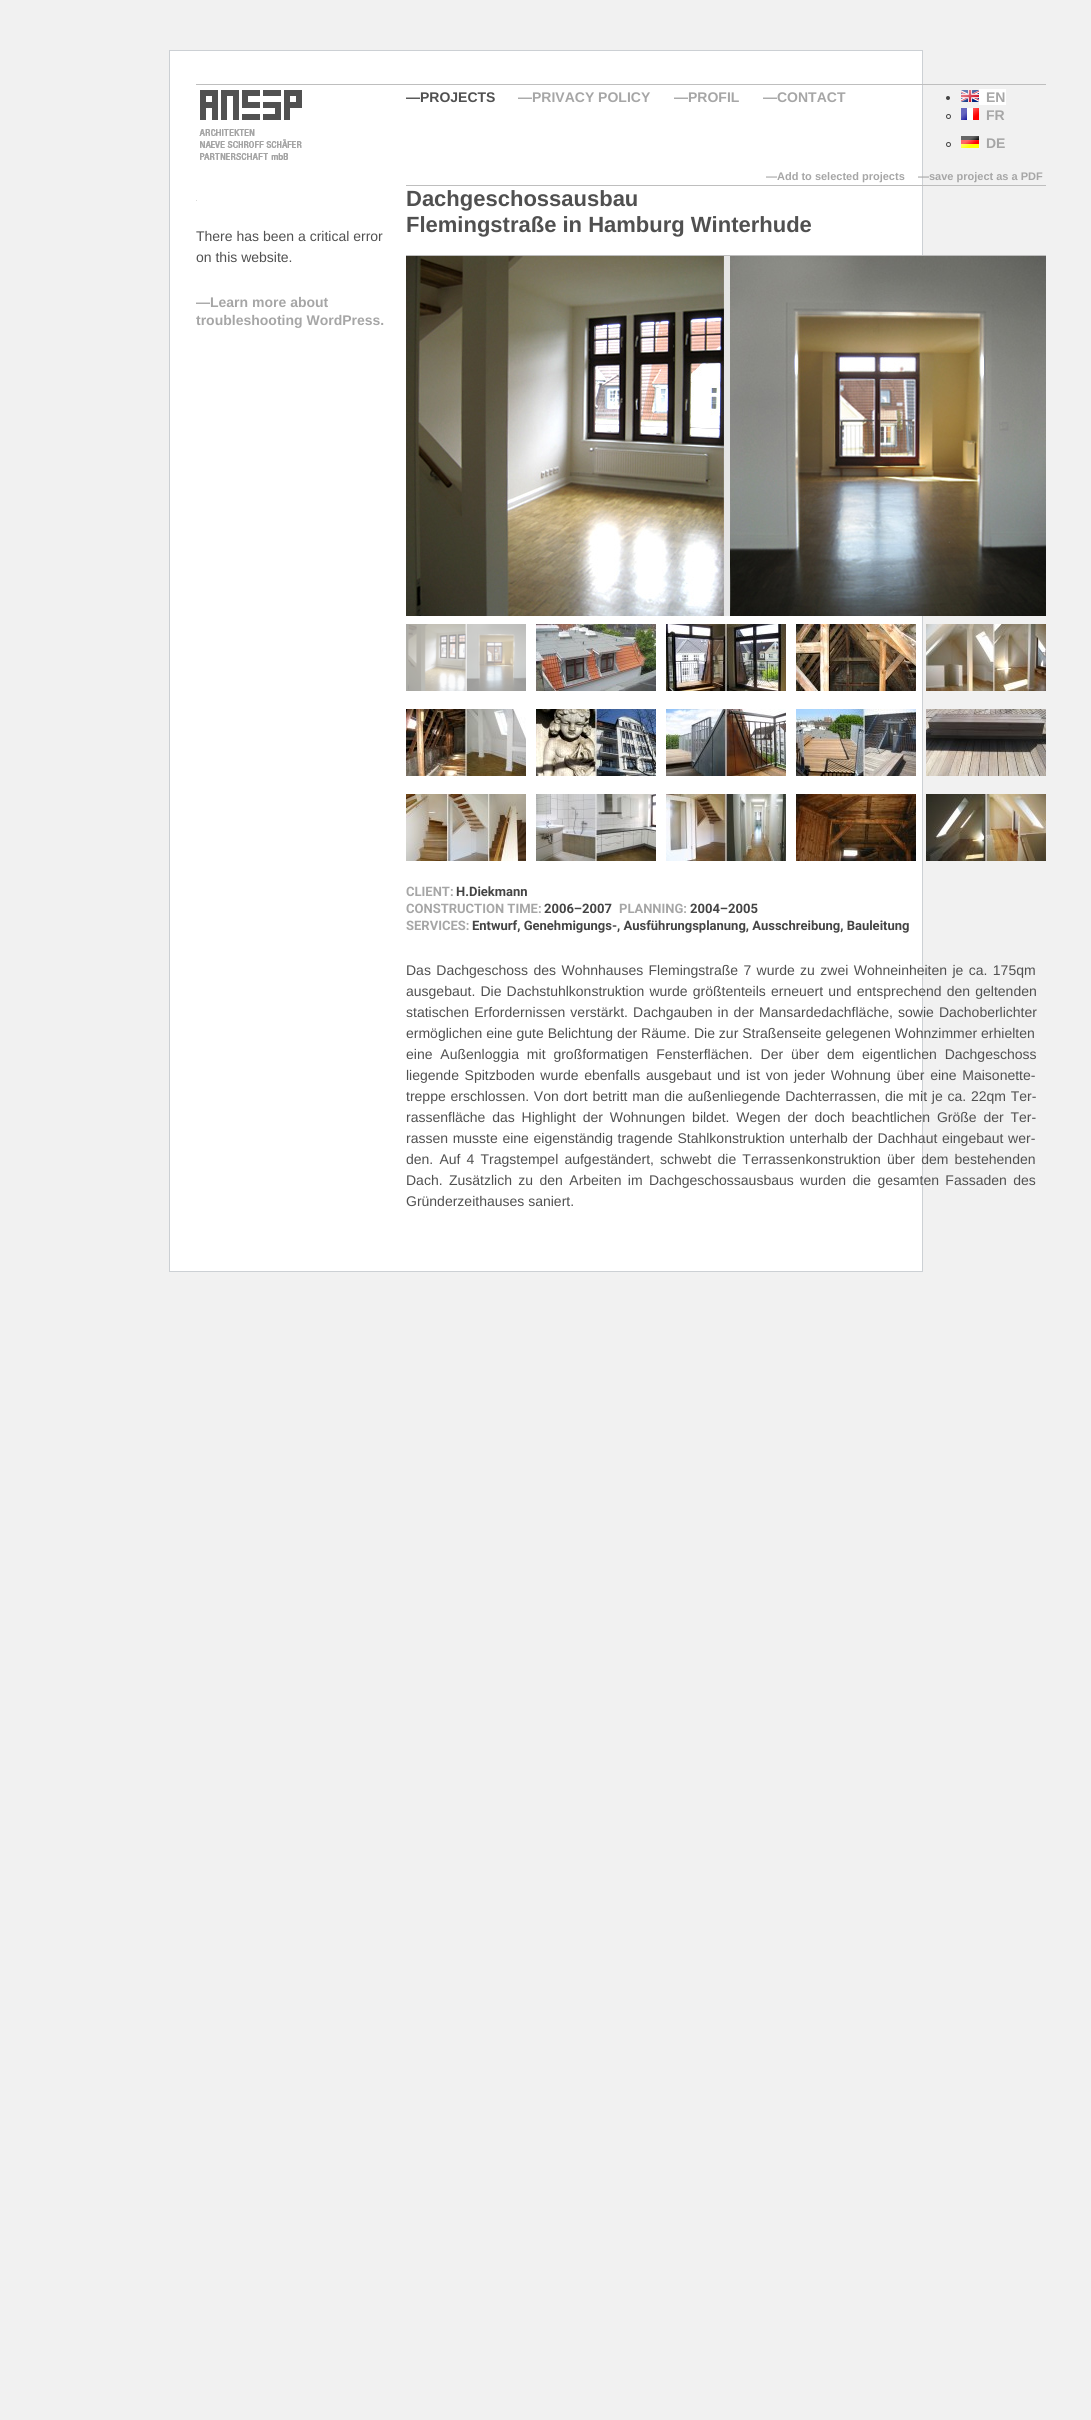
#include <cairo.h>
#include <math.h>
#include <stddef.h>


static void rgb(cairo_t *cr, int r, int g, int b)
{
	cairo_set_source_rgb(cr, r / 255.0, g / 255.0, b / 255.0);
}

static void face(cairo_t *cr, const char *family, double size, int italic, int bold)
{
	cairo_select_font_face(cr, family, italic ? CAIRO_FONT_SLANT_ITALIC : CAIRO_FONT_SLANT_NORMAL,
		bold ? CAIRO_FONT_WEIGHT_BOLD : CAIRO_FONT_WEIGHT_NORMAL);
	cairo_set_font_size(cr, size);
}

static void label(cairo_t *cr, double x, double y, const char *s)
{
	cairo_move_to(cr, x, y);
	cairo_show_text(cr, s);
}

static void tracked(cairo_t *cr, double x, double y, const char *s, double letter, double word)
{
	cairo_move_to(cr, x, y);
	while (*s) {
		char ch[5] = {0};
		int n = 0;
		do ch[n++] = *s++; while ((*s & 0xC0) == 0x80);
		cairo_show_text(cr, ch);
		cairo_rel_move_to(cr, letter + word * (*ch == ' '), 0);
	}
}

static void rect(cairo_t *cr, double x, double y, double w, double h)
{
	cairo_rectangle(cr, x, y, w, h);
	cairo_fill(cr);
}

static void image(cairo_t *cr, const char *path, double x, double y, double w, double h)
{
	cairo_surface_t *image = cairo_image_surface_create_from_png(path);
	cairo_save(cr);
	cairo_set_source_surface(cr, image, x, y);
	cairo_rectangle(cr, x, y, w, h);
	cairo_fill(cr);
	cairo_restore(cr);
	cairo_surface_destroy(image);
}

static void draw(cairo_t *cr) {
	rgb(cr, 241, 241, 241);
	cairo_paint(cr);
	rgb(cr, 255, 255, 255);
	cairo_rectangle(cr, 169.5, 50.5, 753, 1221);
	cairo_fill_preserve(cr);
	rgb(cr, 204, 208, 212);
	cairo_set_line_width(cr, 1);
	cairo_stroke(cr);
	rgb(cr, 190, 190, 190);
	rect(cr, 196, 84, 850, 1);
	image(cr, "image0.png", 199, 90, 103, 70);
	rgb(cr, 218, 218, 218);
	rect(cr, 196, 200, 1, 1);
	face(cr, "Liberation Sans", 14, 0, 1);
	rgb(cr, 80, 80, 80);
	label(cr, 406, 102, "—PROJECTS");
	rgb(cr, 166, 166, 166);
	label(cr, 518, 102, "—PRIVACY POLICY");
	label(cr, 674, 102, "—PROFIL");
	label(cr, 763, 102, "—CONTACT");
	rgb(cr, 68, 68, 68);
	cairo_new_path(cr);
	cairo_arc(cr, 948, 98, 2, 0, 2 * M_PI);
	cairo_fill(cr);
	image(cr, "image1.png", 961, 90, 18, 12);
	rgb(cr, 255, 255, 255);
	rect(cr, 979, 89, 27, 16);
	rgb(cr, 166, 166, 166);
	label(cr, 986, 102, "EN");
	cairo_new_path(cr);
	cairo_arc(cr, 948.5, 116.5, 2, 0, 2 * M_PI);
	rgb(cr, 68, 68, 68);
	cairo_stroke(cr);
	image(cr, "image2.png", 961, 108, 18, 12);
	rgb(cr, 166, 166, 166);
	label(cr, 986, 120, "FR");
	cairo_new_path(cr);
	cairo_arc(cr, 948.5, 144.5, 2, 0, 2 * M_PI);
	rgb(cr, 68, 68, 68);
	cairo_stroke(cr);
	image(cr, "image3.png", 961, 136, 18, 12);
	rgb(cr, 166, 166, 166);
	label(cr, 986, 148, "DE");
	face(cr, "Liberation Sans", 11, 0, 1);
	label(cr, 766, 180, "—Add to selected projects");
	label(cr, 918, 180, "—save project as a PDF");
	face(cr, "Liberation Sans", 14, 0, 0);
	rgb(cr, 80, 80, 80);
	label(cr, 196, 241, "There has been a critical error");
	label(cr, 196, 262, "on this website.");
	face(cr, "Liberation Sans", 14, 0, 1);
	rgb(cr, 166, 166, 166);
	label(cr, 196, 307, "—Learn more about");
	label(cr, 196, 325, "troubleshooting WordPress.");
	rgb(cr, 190, 190, 190);
	rect(cr, 406, 185, 640, 1);
	face(cr, "Liberation Sans", 22, 0, 1);
	rgb(cr, 80, 80, 80);
	label(cr, 406, 206, "Dachgeschossausbau");
	label(cr, 406, 232, "Flemingstraße in Hamburg Winterhude");
	rgb(cr, 190, 190, 190);
	rect(cr, 406, 255, 640, 1);
	image(cr, "image4.png", 406, 256, 640, 360);
	rgb(cr, 248, 248, 248);
	rect(cr, 406, 624, 120, 67);
	image(cr, "image5.png", 406, 624, 120, 67);
	image(cr, "image6.png", 536, 624, 120, 67);
	image(cr, "image7.png", 666, 624, 120, 67);
	image(cr, "image8.png", 796, 624, 120, 67);
	image(cr, "image9.png", 926, 624, 120, 67);
	image(cr, "image10.png", 406, 709, 120, 67);
	image(cr, "image11.png", 536, 709, 120, 67);
	image(cr, "image12.png", 666, 709, 120, 67);
	image(cr, "image13.png", 796, 709, 120, 67);
	image(cr, "image14.png", 926, 709, 120, 67);
	image(cr, "image15.png", 406, 794, 120, 67);
	image(cr, "image16.png", 536, 794, 120, 67);
	image(cr, "image17.png", 666, 794, 120, 67);
	image(cr, "image18.png", 796, 794, 120, 67);
	image(cr, "image19.png", 926, 794, 120, 67);
	face(cr, "Roboto", 13, 0, 1);
	rgb(cr, 166, 166, 166);
	label(cr, 406, 896, "CLIENT:");
	rgb(cr, 68, 68, 68);
	label(cr, 456, 896, "H.Diekmann");
	rgb(cr, 166, 166, 166);
	label(cr, 406, 913, "CONSTRUCTION TIME:");
	rgb(cr, 68, 68, 68);
	label(cr, 544, 913, "2006–2007");
	rgb(cr, 166, 166, 166);
	label(cr, 619, 913, "PLANNING:");
	rgb(cr, 68, 68, 68);
	label(cr, 690, 913, "2004–2005");
	rgb(cr, 166, 166, 166);
	label(cr, 406, 930, "SERVICES:");
	rgb(cr, 68, 68, 68);
	label(cr, 472, 930, "Entwurf, Genehmigungs‑, Ausführungsplanung, Ausschreibung, Bauleitung");
	face(cr, "Liberation Sans", 14, 0, 0);
	rgb(cr, 80, 80, 80);
	tracked(cr, 406, 975, "Das Dachgeschoss des Wohnhauses Flemingstraße 7 wurde zu zwei Wohneinheiten je ca. 175qm", 0, 1.5);
	tracked(cr, 406, 996, "ausgebaut. Die Dachstuhlkonstruktion wurde größtenteils erneuert und entsprechend den geltenden", 0, 1.25);
	tracked(cr, 406, 1017, "statischen Erfordernissen verstärkt. Dachgauben in der Mansardedachfläche, sowie Dachoberlichter", 0, 1.25);
	label(cr, 406, 1038, "ermöglichen eine gute Belichtung der Räume. Die zur Straßenseite gelegenen Wohnzimmer erhielten");
	tracked(cr, 406, 1059, "eine Außenloggia mit großformatigen Fensterflächen. Der über dem eigentlichen Dachgeschoss", 0, 4);
	tracked(cr, 406, 1080, "liegende Spitzboden wurde ebenfalls ausgebaut und ist von jeder Wohnung über eine Maisonette-", 0, 1.8);
	tracked(cr, 406, 1101, "treppe erschlossen. Von dort betritt man die außenliegende Dachterrassen, die mit je ca. 22qm Ter-", 0, 0.9);
	tracked(cr, 406, 1122, "rassenfläche das Highlight der Wohnungen bildet. Wegen der doch beachtlichen Größe der Ter-", 0, 2.9);
	tracked(cr, 406, 1143, "rassen musste eine eigenständig tragende Stahlkonstruktion unterhalb der Dachhaut eingebaut wer-", 0, 0.75);
	tracked(cr, 406, 1164, "den. Auf 4 Tragstempel aufgeständert, schwebt die Terrassenkonstruktion über dem bestehenden", 0, 2.25);
	tracked(cr, 406, 1185, "Dach. Zusätzlich zu den Arbeiten im Dachgeschossausbaus wurden die gesamten Fassaden des", 0, 2.5);
	label(cr, 406, 1206, "Gründerzeithauses saniert.");
}

int main(void) {
	cairo_surface_t *surface = cairo_image_surface_create(CAIRO_FORMAT_RGB24, 1091, 2420);
	cairo_t *cr = cairo_create(surface);
	cairo_font_options_t *options = cairo_font_options_create();
	cairo_font_options_set_hint_metrics(options, CAIRO_HINT_METRICS_OFF);
	cairo_font_options_set_hint_style(options, CAIRO_HINT_STYLE_NONE);
	cairo_set_font_options(cr, options);
	cairo_set_miter_limit(cr, 4);
	draw(cr);
	cairo_surface_write_to_png(surface, "render.png");
	cairo_font_options_destroy(options);
	cairo_destroy(cr);
	cairo_surface_destroy(surface);
	return 0;
}
